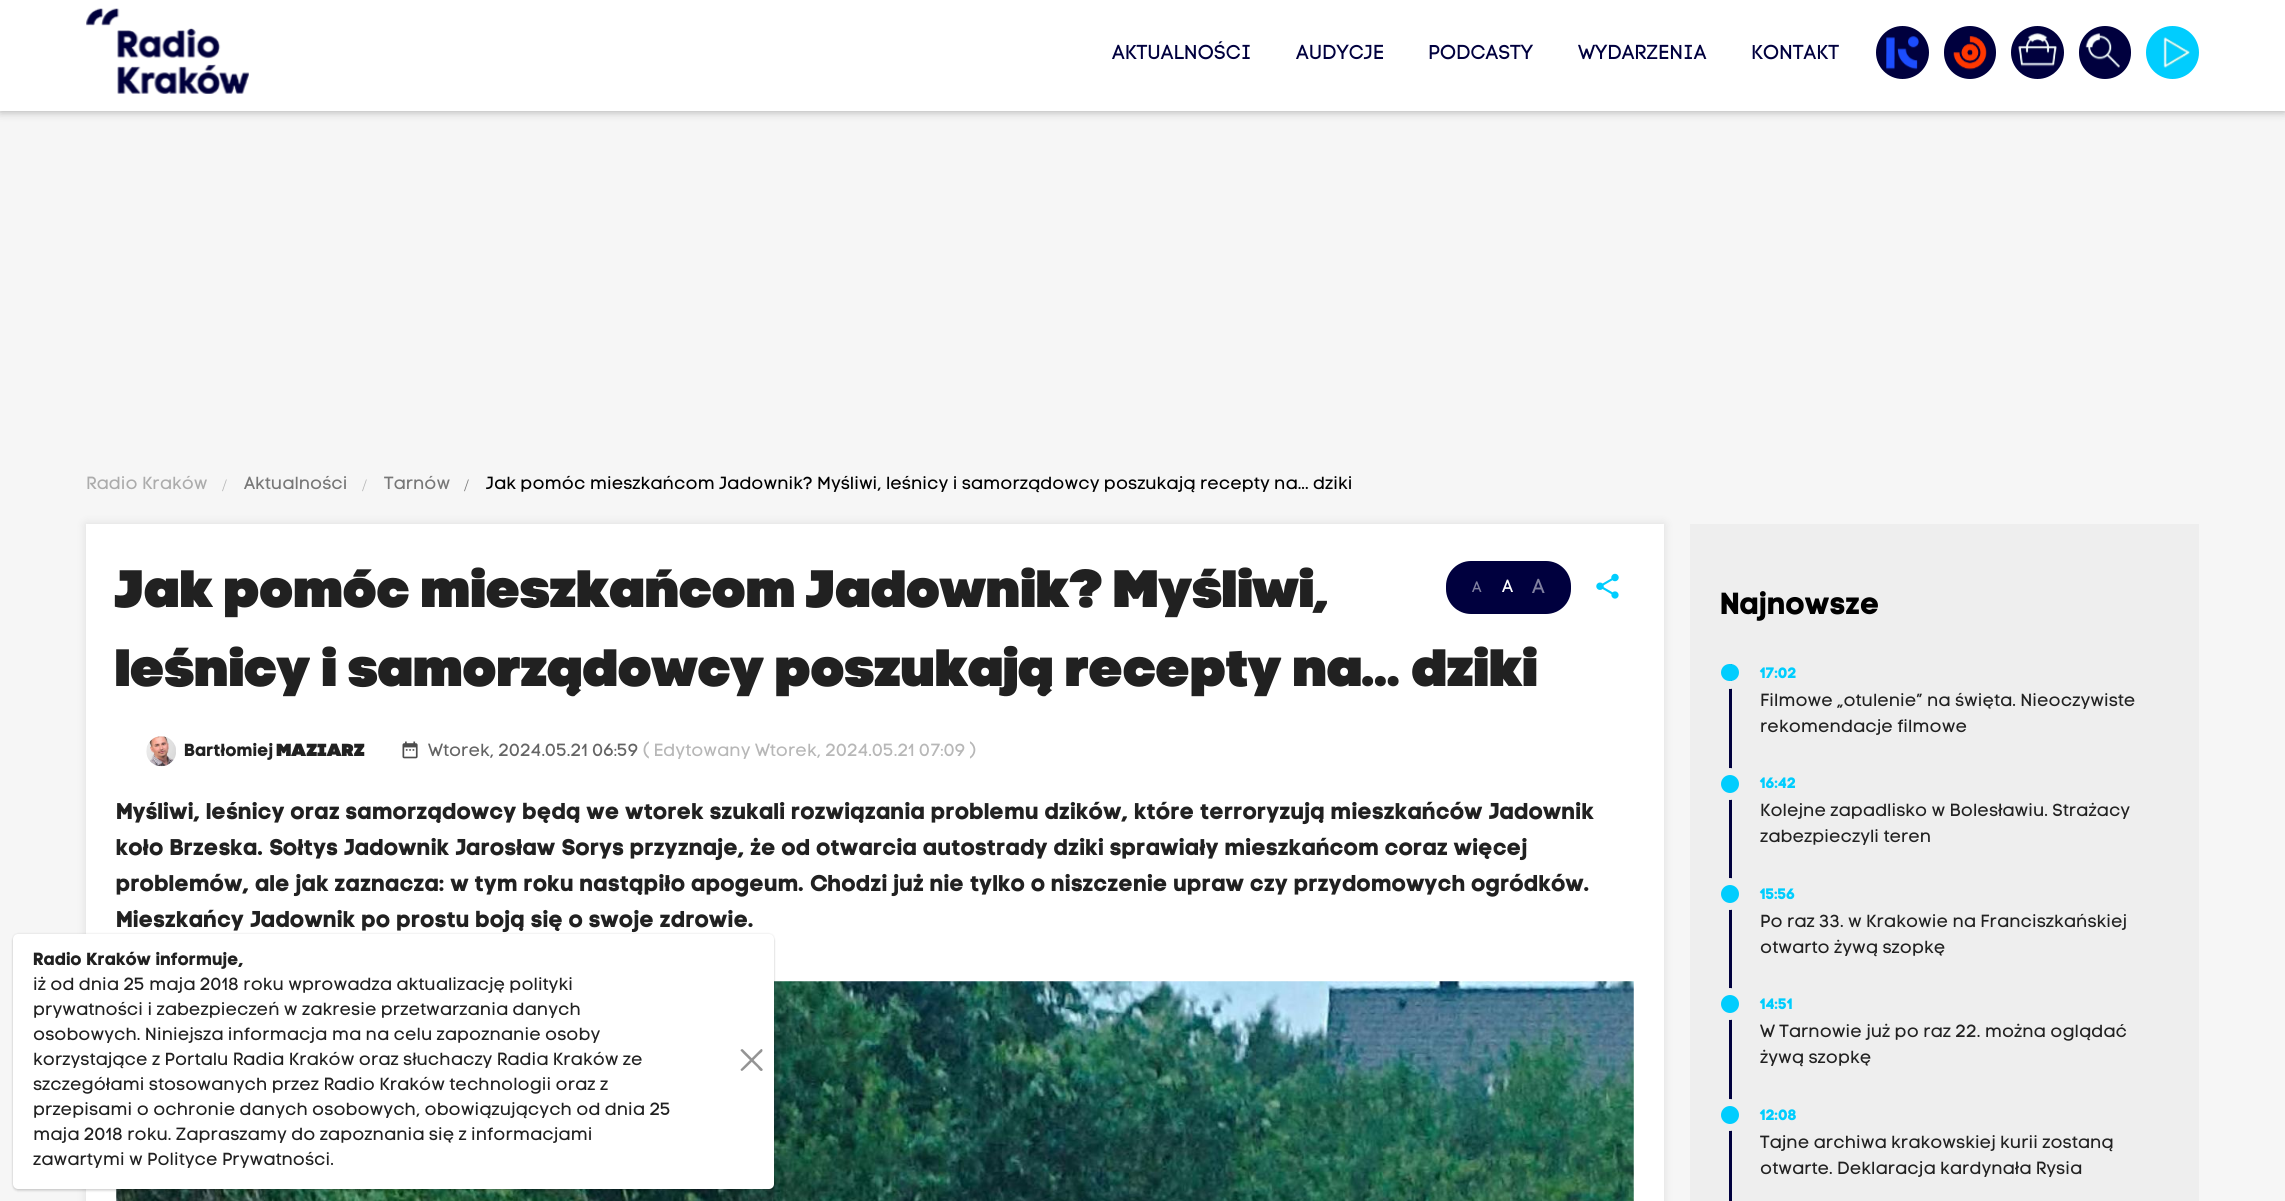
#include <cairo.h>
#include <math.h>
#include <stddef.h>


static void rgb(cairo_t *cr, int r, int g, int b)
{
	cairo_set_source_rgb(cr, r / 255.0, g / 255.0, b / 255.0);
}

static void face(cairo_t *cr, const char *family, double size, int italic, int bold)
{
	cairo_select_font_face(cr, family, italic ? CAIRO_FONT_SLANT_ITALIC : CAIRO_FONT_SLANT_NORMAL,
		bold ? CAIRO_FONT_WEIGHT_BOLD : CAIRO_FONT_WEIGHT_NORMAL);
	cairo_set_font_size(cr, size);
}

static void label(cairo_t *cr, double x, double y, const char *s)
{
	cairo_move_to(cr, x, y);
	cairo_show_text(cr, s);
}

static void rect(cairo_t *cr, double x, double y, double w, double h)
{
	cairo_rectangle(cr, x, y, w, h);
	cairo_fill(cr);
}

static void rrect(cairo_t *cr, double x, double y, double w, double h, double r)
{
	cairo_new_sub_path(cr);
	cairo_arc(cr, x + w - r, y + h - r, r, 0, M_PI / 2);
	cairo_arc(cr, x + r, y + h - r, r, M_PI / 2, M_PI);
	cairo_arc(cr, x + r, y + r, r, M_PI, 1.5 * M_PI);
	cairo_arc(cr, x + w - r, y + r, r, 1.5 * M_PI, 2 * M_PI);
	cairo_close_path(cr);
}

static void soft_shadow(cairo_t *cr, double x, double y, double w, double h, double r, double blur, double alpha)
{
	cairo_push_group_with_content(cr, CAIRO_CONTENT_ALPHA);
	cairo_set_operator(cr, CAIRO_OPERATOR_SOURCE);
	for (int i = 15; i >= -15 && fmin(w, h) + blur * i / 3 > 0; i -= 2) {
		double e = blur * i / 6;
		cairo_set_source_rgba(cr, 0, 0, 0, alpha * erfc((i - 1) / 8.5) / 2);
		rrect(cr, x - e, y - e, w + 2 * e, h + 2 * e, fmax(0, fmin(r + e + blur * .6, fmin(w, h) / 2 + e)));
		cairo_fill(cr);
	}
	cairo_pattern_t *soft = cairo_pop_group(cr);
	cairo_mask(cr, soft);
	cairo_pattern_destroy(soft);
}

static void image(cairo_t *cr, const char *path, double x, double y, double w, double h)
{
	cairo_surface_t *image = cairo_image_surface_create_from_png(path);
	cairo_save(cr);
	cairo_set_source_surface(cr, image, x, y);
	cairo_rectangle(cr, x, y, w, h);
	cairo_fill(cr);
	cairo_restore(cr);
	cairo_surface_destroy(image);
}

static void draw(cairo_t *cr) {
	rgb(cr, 246, 246, 246);
	cairo_paint(cr);
	rgb(cr, 0, 0, 0);
	soft_shadow(cr, 0, 0, 2285, 111, 0, 5, 0.33);
	rgb(cr, 255, 255, 255);
	rect(cr, 0, 0, 2285, 111);
	image(cr, "image0.png", 86, 8, 163, 86);
	face(cr, "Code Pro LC", 20, 0, 0);
	rgb(cr, 0, 0, 62);
	label(cr, 1112, 59, "AKTUALNOŚCI");
	label(cr, 1296, 59, "AUDYCJE");
	label(cr, 1428, 59, "PODCASTY");
	label(cr, 1578, 59, "WYDARZENIA");
	label(cr, 1751, 59, "KONTAKT");
	cairo_new_path(cr);
	cairo_arc(cr, 1902.5, 52.5, 26.5, 0, 2 * M_PI);
	cairo_fill(cr);
	image(cr, "image1.png", 1886, 36, 33, 34);
	rrect(cr, 1944, 26, 52, 53, 26);
	cairo_fill(cr);
	image(cr, "image2.png", 1953, 36, 34, 34);
	cairo_arc(cr, 2037.5, 52.5, 26.5, 0, 2 * M_PI);
	cairo_fill(cr);
	image(cr, "image3.png", 2018, 33, 39, 34);
	rrect(cr, 2079, 26, 52, 53, 26);
	cairo_fill(cr);
	image(cr, "image4.png", 2085, 33, 35, 35);
	rgb(cr, 0, 205, 254);
	cairo_arc(cr, 2172.5, 52.5, 26.5, 0, 2 * M_PI);
	cairo_fill(cr);
	image(cr, "image5.png", 2163, 37, 27, 31);
	face(cr, "Code Pro LC", 17.5, 0, 0);
	rgb(cr, 172, 172, 172);
	label(cr, 86, 489, "Radio Kraków");
	face(cr, "Liberation Serif", 17.5, 0, 0);
	rgb(cr, 183, 183, 183);
	label(cr, 222, 491, "/");
	face(cr, "Code Pro LC", 17.5, 0, 0);
	rgb(cr, 119, 119, 119);
	label(cr, 244, 489, "Aktualności");
	face(cr, "Liberation Serif", 17.5, 0, 0);
	rgb(cr, 183, 183, 183);
	label(cr, 362, 491, "/");
	face(cr, "Code Pro LC", 17.5, 0, 0);
	rgb(cr, 119, 119, 119);
	label(cr, 384, 489, "Tarnów");
	face(cr, "Liberation Serif", 17.5, 0, 0);
	label(cr, 464, 491, "/");
	face(cr, "Code Pro LC", 17.5, 0, 0);
	rgb(cr, 0, 0, 0);
	label(cr, 486, 489, "Jak pomóc mieszkańcom Jadownik? Myśliwi, leśnicy i samorządowcy poszukają recepty na... dziki");
	rgb(cr, 0, 0, 0);
	soft_shadow(cr, 86, 524, 1578, 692, 0, 5, 0.1);
	rgb(cr, 255, 255, 255);
	rect(cr, 86, 524, 1578, 677);
	face(cr, "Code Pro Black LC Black", 52.5, 0, 0);
	rgb(cr, 33, 33, 33);
	label(cr, 116, 607, "Jak pomóc mieszkańcom Jadownik? Myśliwi,");
	label(cr, 116, 686, "leśnicy i samorządowcy poszukają recepty na... dziki");
	image(cr, "image6.png", 1596, 573, 23, 26);
	rgb(cr, 0, 0, 62);
	rrect(cr, 1446, 561, 125, 53, 25);
	cairo_fill(cr);
	face(cr, "Code Pro LC", 15, 0, 0);
	rgb(cr, 128, 128, 159);
	label(cr, 1472, 592, "A");
	face(cr, "Code Pro LC", 17.5, 0, 0);
	rgb(cr, 255, 255, 255);
	label(cr, 1502, 592, "A");
	face(cr, "Code Pro LC", 20, 0, 0);
	rgb(cr, 128, 128, 159);
	label(cr, 1532, 593, "A");
	image(cr, "image7.png", 146, 736, 30, 31);
	face(cr, "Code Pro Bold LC", 17.5, 0, 1);
	rgb(cr, 33, 33, 33);
	label(cr, 184, 756, "Bartłomiej");
	face(cr, "Code Pro Black LC Black", 17.5, 0, 0);
	label(cr, 277, 756, "MAZIARZ");
	image(cr, "image8.png", 402, 741, 16, 18);
	face(cr, "Code Pro LC", 17.5, 0, 0);
	rgb(cr, 100, 100, 100);
	label(cr, 428, 756, "Wtorek, 2024.05.21 06:59");
	rgb(cr, 183, 183, 183);
	label(cr, 643, 756, "( Edytowany Wtorek, 2024.05.21 07:09 )");
	face(cr, "Code Pro Bold LC", 22.75, 0, 1);
	rgb(cr, 33, 33, 33);
	label(cr, 116, 819, "Myśliwi, leśnicy oraz samorządowcy będą we wtorek szukali rozwiązania problemu dzików, które terroryzują mieszkańców Jadownik");
	label(cr, 116, 855, "koło Brzeska. Sołtys Jadownik Jarosław Sorys przyznaje, że od otwarcia autostrady dziki sprawiały mieszkańcom coraz więcej");
	label(cr, 116, 891, "problemów, ale jak zaznacza: w tym roku nastąpiło apogeum. Chodzi już nie tylko o niszczenie upraw czy przydomowych ogródków.");
	label(cr, 116, 927, "Mieszkańcy Jadownik po prostu boją się o swoje zdrowie.");
	image(cr, "image9.png", 116, 981, 1518, 220);
	rgb(cr, 238, 238, 238);
	rect(cr, 1690, 524, 509, 677);
	face(cr, "Code Pro Bold LC", 30.5, 0, 1);
	rgb(cr, 0, 0, 0);
	label(cr, 1720, 614, "Najnowsze");
	rgb(cr, 0, 0, 62);
	rect(cr, 1729, 660, 3, 541);
	cairo_save(cr);
	cairo_rectangle(cr, 1720, 660, 461, 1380);
	cairo_clip(cr);
	rrect(cr, 1718, 660, 24, 25, 12);
	rgb(cr, 238, 238, 238);
	cairo_set_line_width(cr, 8);
	cairo_stroke(cr);
	cairo_restore(cr);
	rgb(cr, 0, 205, 254);
	rrect(cr, 1722.5, 665.5, 15, 14, 7);
	cairo_fill_preserve(cr);
	cairo_set_line_width(cr, 3);
	cairo_stroke(cr);
	face(cr, "Code Pro Bold LC", 15, 0, 1);
	label(cr, 1760, 678, "17:02");
	face(cr, "Code Pro LC", 17.5, 0, 0);
	rgb(cr, 33, 33, 33);
	label(cr, 1760, 706, "Filmowe „otulenie” na święta. Nieoczywiste");
	label(cr, 1760, 732, "rekomendacje filmowe");
	cairo_save(cr);
	cairo_rectangle(cr, 1720, 660, 461, 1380);
	cairo_clip(cr);
	cairo_arc(cr, 1730, 784, 12, 0, 2 * M_PI);
	rgb(cr, 238, 238, 238);
	cairo_set_line_width(cr, 8);
	cairo_stroke(cr);
	cairo_restore(cr);
	rgb(cr, 0, 205, 254);
	cairo_arc(cr, 1730, 784, 7.5, 0, 2 * M_PI);
	cairo_fill_preserve(cr);
	cairo_stroke(cr);
	face(cr, "Code Pro Bold LC", 15, 0, 1);
	label(cr, 1760, 788, "16:42");
	face(cr, "Code Pro LC", 17.5, 0, 0);
	rgb(cr, 33, 33, 33);
	label(cr, 1760, 816, "Kolejne zapadlisko w Bolesławiu. Strażacy");
	label(cr, 1760, 842, "zabezpieczyli teren");
	cairo_save(cr);
	cairo_rectangle(cr, 1720, 660, 461, 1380);
	cairo_clip(cr);
	cairo_arc(cr, 1730, 894, 12, 0, 2 * M_PI);
	rgb(cr, 238, 238, 238);
	cairo_set_line_width(cr, 8);
	cairo_stroke(cr);
	cairo_restore(cr);
	rgb(cr, 0, 205, 254);
	cairo_arc(cr, 1730, 894, 7.5, 0, 2 * M_PI);
	cairo_fill_preserve(cr);
	cairo_stroke(cr);
	face(cr, "Code Pro Bold LC", 15, 0, 1);
	label(cr, 1760, 899, "15:56");
	face(cr, "Code Pro LC", 17.5, 0, 0);
	rgb(cr, 33, 33, 33);
	label(cr, 1760, 927, "Po raz 33. w Krakowie na Franciszkańskiej");
	label(cr, 1760, 953, "otwarto żywą szopkę");
	cairo_save(cr);
	cairo_rectangle(cr, 1720, 660, 461, 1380);
	cairo_clip(cr);
	cairo_arc(cr, 1730, 1004, 12, 0, 2 * M_PI);
	rgb(cr, 238, 238, 238);
	cairo_set_line_width(cr, 8);
	cairo_stroke(cr);
	cairo_restore(cr);
	rgb(cr, 0, 205, 254);
	cairo_arc(cr, 1730, 1004, 7.5, 0, 2 * M_PI);
	cairo_fill_preserve(cr);
	cairo_stroke(cr);
	face(cr, "Code Pro Bold LC", 15, 0, 1);
	label(cr, 1760, 1009, "14:51");
	face(cr, "Code Pro LC", 17.5, 0, 0);
	rgb(cr, 33, 33, 33);
	label(cr, 1760, 1037, "W Tarnowie już po raz 22. można oglądać");
	label(cr, 1760, 1063, "żywą szopkę");
	cairo_save(cr);
	cairo_rectangle(cr, 1720, 660, 461, 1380);
	cairo_clip(cr);
	cairo_arc(cr, 1730, 1115, 12, 0, 2 * M_PI);
	rgb(cr, 238, 238, 238);
	cairo_set_line_width(cr, 8);
	cairo_stroke(cr);
	cairo_restore(cr);
	rgb(cr, 0, 205, 254);
	cairo_arc(cr, 1730, 1115, 7.5, 0, 2 * M_PI);
	cairo_fill_preserve(cr);
	cairo_stroke(cr);
	face(cr, "Code Pro Bold LC", 15, 0, 1);
	label(cr, 1760, 1120, "12:08");
	face(cr, "Code Pro LC", 17.5, 0, 0);
	rgb(cr, 33, 33, 33);
	label(cr, 1760, 1148, "Tajne archiwa krakowskiej kurii zostaną");
	label(cr, 1760, 1174, "otwarte. Deklaracja kardynała Rysia");
	rgb(cr, 0, 0, 0);
	soft_shadow(cr, 13, 934, 761, 255, 5, 1, 0.14);
	soft_shadow(cr, 13, 936, 761, 255, 5, 1, 0.12);
	rgb(cr, 255, 255, 255);
	rrect(cr, 13, 934, 761, 255, 5);
	cairo_fill(cr);
	face(cr, "Code Pro Bold LC", 17.5, 0, 1);
	rgb(cr, 33, 33, 33);
	label(cr, 33, 965, "Radio Kraków informuje,");
	face(cr, "Code Pro LC", 17.5, 0, 0);
	label(cr, 33, 990, "iż od dnia 25 maja 2018 roku wprowadza aktualizację polityki");
	label(cr, 33, 1015, "prywatności i zabezpieczeń w zakresie przetwarzania danych");
	label(cr, 33, 1040, "osobowych. Niniejsza informacja ma na celu zapoznanie osoby");
	label(cr, 33, 1065, "korzystające z Portalu Radia Kraków oraz słuchaczy Radia Kraków ze");
	rgb(cr, 148, 148, 148);
	cairo_new_path(cr);
	cairo_move_to(cr, 741, 1069);
	cairo_line_to(cr, 760.5, 1049.5);
	cairo_curve_to(cr, 761.5, 1048.5, 762.5, 1049, 762.5, 1050.5);
	cairo_curve_to(cr, 762.5, 1052, 760.5, 1053, 759, 1054.5);
	cairo_curve_to(cr, 757, 1056.5, 743.5, 1070.5, 742, 1071);
	cairo_curve_to(cr, 741, 1071, 740, 1069.5, 741, 1069);
	cairo_close_path(cr);
	cairo_fill(cr);
	cairo_new_path(cr);
	cairo_move_to(cr, 743, 1049.5);
	cairo_line_to(cr, 762.5, 1069);
	cairo_curve_to(cr, 763, 1069.5, 762.5, 1071, 761.5, 1071);
	cairo_curve_to(cr, 759.5, 1071, 758.5, 1068.5, 757.5, 1067.5);
	cairo_curve_to(cr, 755.5, 1065.5, 741, 1051.5, 740.5, 1050.5);
	cairo_curve_to(cr, 740.5, 1049.5, 742, 1048.5, 743, 1049.5);
	cairo_close_path(cr);
	cairo_fill(cr);
	rgb(cr, 33, 33, 33);
	label(cr, 33, 1090, "szczegółami stosowanych przez Radio Kraków technologii oraz z");
	label(cr, 33, 1115, "przepisami o ochronie danych osobowych, obowiązujących od dnia 25");
	label(cr, 33, 1140, "maja 2018 roku. Zapraszamy do zapoznania się z informacjami");
	label(cr, 33, 1165, "zawartymi w Polityce Prywatności.");
}

int main(void) {
	cairo_surface_t *surface = cairo_image_surface_create(CAIRO_FORMAT_RGB24, 2285, 1201);
	cairo_t *cr = cairo_create(surface);
	cairo_font_options_t *options = cairo_font_options_create();
	cairo_font_options_set_hint_metrics(options, CAIRO_HINT_METRICS_OFF);
	cairo_font_options_set_hint_style(options, CAIRO_HINT_STYLE_NONE);
	cairo_set_font_options(cr, options);
	cairo_set_miter_limit(cr, 4);
	draw(cr);
	cairo_surface_write_to_png(surface, "render.png");
	cairo_font_options_destroy(options);
	cairo_destroy(cr);
	cairo_surface_destroy(surface);
	return 0;
}
